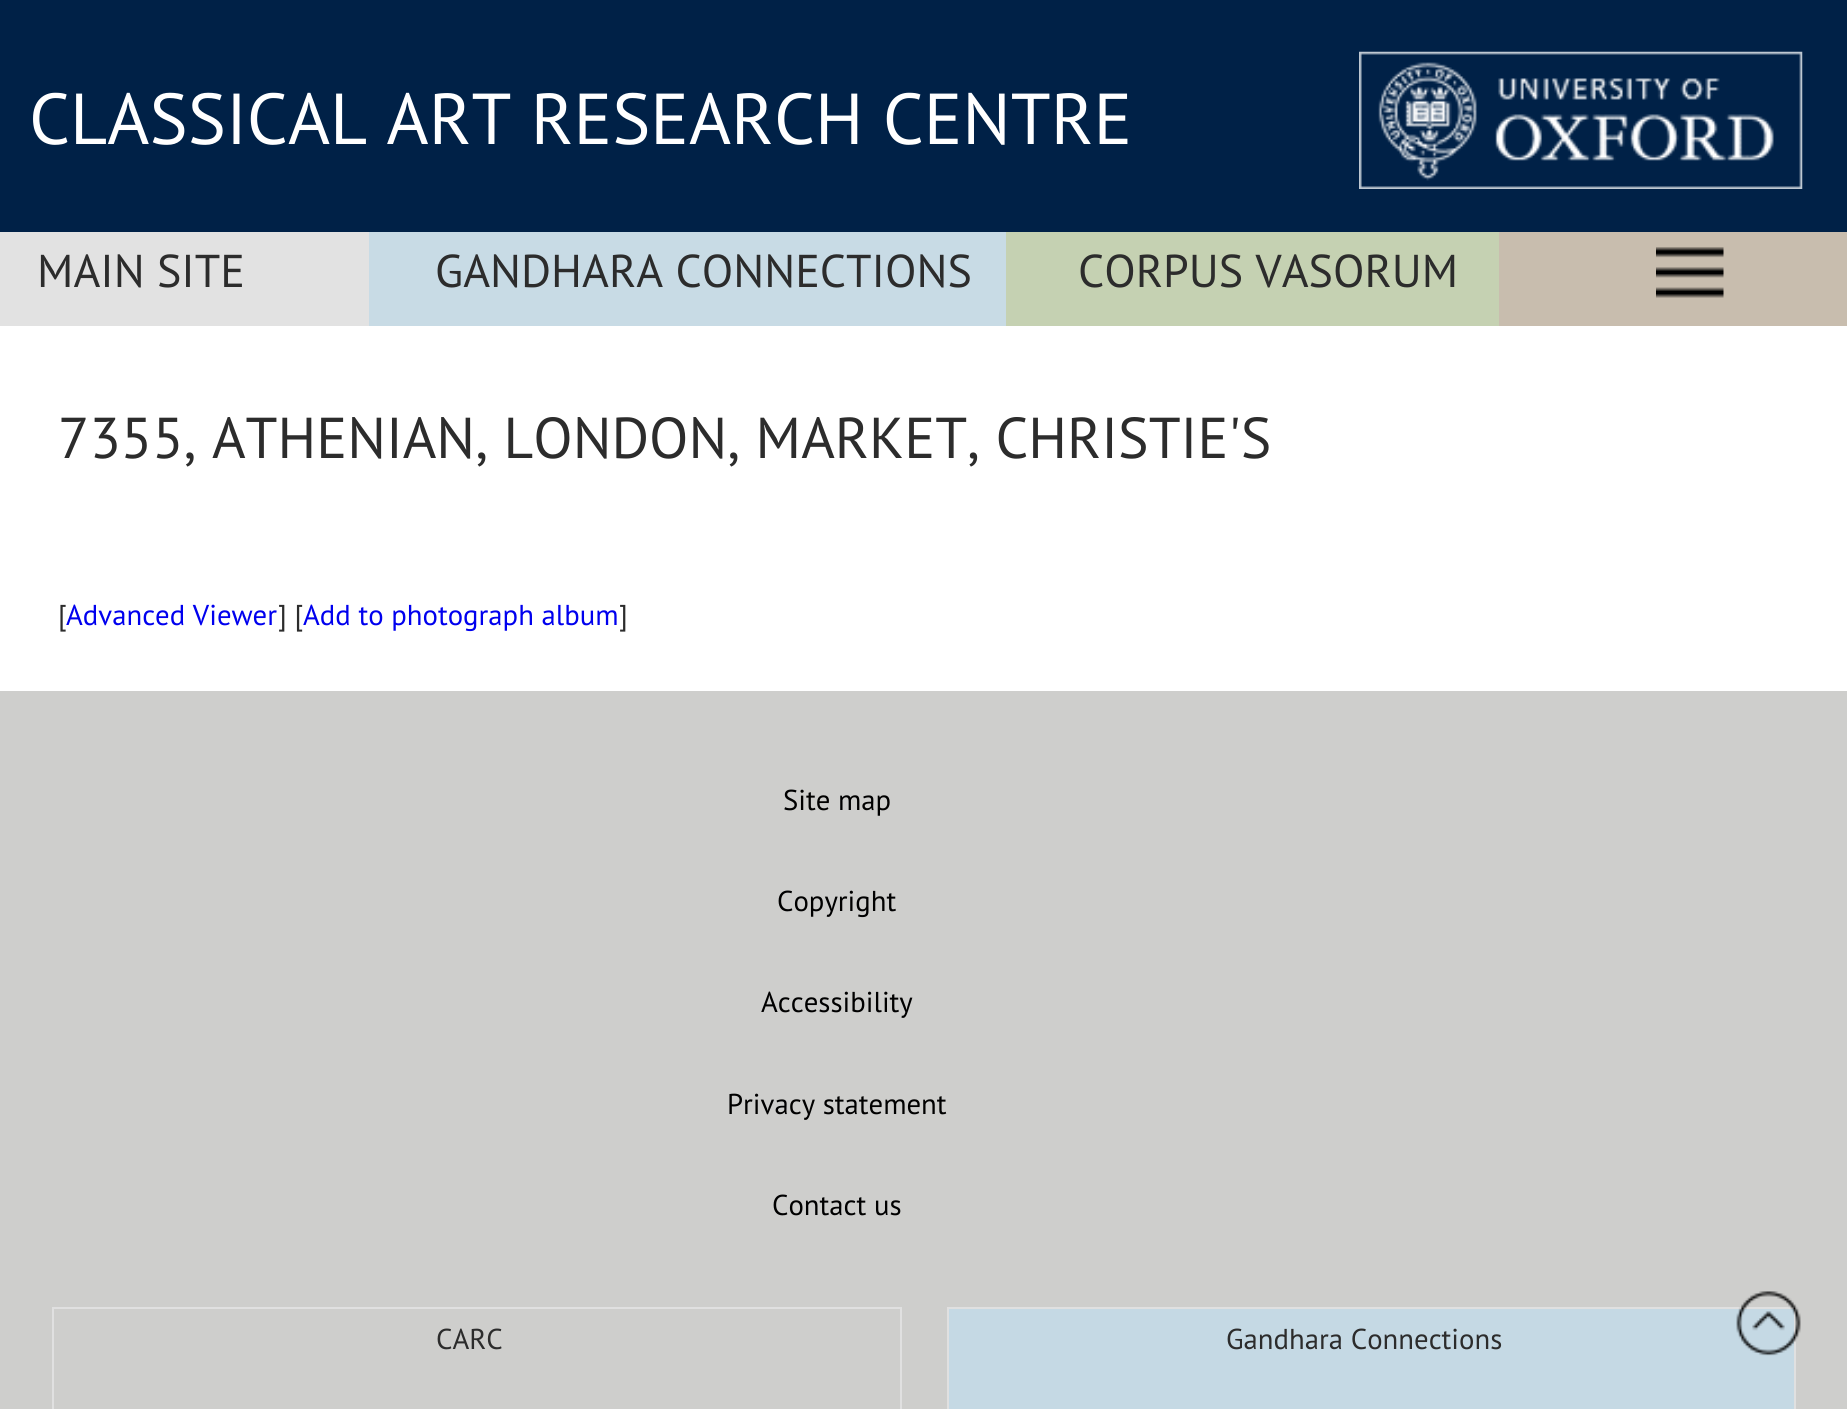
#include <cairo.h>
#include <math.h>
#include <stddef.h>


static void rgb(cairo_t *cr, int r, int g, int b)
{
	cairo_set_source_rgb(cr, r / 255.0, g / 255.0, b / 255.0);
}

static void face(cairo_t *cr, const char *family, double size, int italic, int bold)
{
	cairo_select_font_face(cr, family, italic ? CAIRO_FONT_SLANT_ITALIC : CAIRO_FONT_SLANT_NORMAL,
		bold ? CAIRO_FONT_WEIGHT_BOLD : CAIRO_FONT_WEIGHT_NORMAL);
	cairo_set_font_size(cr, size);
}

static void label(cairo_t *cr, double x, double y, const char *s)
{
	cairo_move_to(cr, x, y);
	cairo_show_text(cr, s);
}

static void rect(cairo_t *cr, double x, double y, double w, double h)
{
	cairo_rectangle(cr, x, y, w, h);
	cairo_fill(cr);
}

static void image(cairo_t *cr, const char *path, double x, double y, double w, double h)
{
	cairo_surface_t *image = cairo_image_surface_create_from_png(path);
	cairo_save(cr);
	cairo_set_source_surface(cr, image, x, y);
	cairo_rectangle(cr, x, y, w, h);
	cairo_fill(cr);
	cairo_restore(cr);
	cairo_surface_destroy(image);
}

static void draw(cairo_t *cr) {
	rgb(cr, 255, 255, 255);
	cairo_paint(cr);
	rgb(cr, 0, 33, 71);
	rect(cr, 0, 0, 1847, 232);
	face(cr, "PT Sans", 72, 0, 0);
	rgb(cr, 255, 255, 255);
	label(cr, 29, 144, "CLASSICAL ART RESEARCH CENTRE");
	image(cr, "image0.png", 1359, 51, 444, 138);
	rgb(cr, 226, 226, 226);
	rect(cr, 0, 232, 369, 94);
	face(cr, "PT Sans", 46, 0, 0);
	rgb(cr, 44, 44, 44);
	label(cr, 37, 287, "MAIN SITE");
	rgb(cr, 200, 219, 229);
	rect(cr, 369, 232, 637, 94);
	rgb(cr, 44, 44, 44);
	label(cr, 435, 287, "GANDHARA CONNECTIONS");
	rgb(cr, 197, 209, 178);
	rect(cr, 1006, 232, 493, 94);
	rgb(cr, 44, 44, 44);
	label(cr, 1078, 287, "CORPUS VASORUM");
	rgb(cr, 200, 189, 174);
	rect(cr, 1499, 232, 348, 94);
	image(cr, "image1.png", 1656, 247, 68, 51);
	face(cr, "PT Sans", 57.6, 0, 0);
	rgb(cr, 44, 44, 44);
	label(cr, 58, 458, "7355, ATHENIAN, LONDON, MARKET, CHRISTIE'S");
	face(cr, "PT Sans", 28.75, 0, 0);
	label(cr, 58, 625, "[");
	rgb(cr, 0, 0, 238);
	label(cr, 66, 625, "Advanced Viewer");
	rgb(cr, 44, 44, 44);
	label(cr, 278, 625, "] [");
	rgb(cr, 0, 0, 238);
	label(cr, 303, 625, "Add to photograph album");
	rgb(cr, 44, 44, 44);
	label(cr, 619, 625, "]");
	rgb(cr, 206, 206, 204);
	rect(cr, 0, 691, 1847, 718);
	rgb(cr, 0, 0, 0);
	label(cr, 783, 810, "Site map");
	label(cr, 777, 911, "Copyright");
	label(cr, 761, 1012, "Accessibility");
	label(cr, 727, 1114, "Privacy statement");
	label(cr, 772, 1215, "Contact us");
	cairo_rectangle(cr, 53, 1308, 848, 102);
	rgb(cr, 224, 224, 224);
	cairo_stroke(cr);
	rgb(cr, 44, 44, 44);
	label(cr, 436, 1349, "CARC");
	rgb(cr, 197, 217, 228);
	cairo_rectangle(cr, 948, 1308, 847, 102);
	cairo_fill_preserve(cr);
	rgb(cr, 224, 224, 224);
	cairo_stroke(cr);
	rgb(cr, 44, 44, 44);
	label(cr, 1226, 1349, "Gandhara Connections");
	image(cr, "image2.png", 1736, 1291, 65, 65);
}

int main(void) {
	cairo_surface_t *surface = cairo_image_surface_create(CAIRO_FORMAT_RGB24, 1847, 1409);
	cairo_t *cr = cairo_create(surface);
	cairo_font_options_t *options = cairo_font_options_create();
	cairo_font_options_set_hint_metrics(options, CAIRO_HINT_METRICS_OFF);
	cairo_font_options_set_hint_style(options, CAIRO_HINT_STYLE_NONE);
	cairo_set_font_options(cr, options);
	cairo_set_miter_limit(cr, 4);
	draw(cr);
	cairo_surface_write_to_png(surface, "render.png");
	cairo_font_options_destroy(options);
	cairo_destroy(cr);
	cairo_surface_destroy(surface);
	return 0;
}
